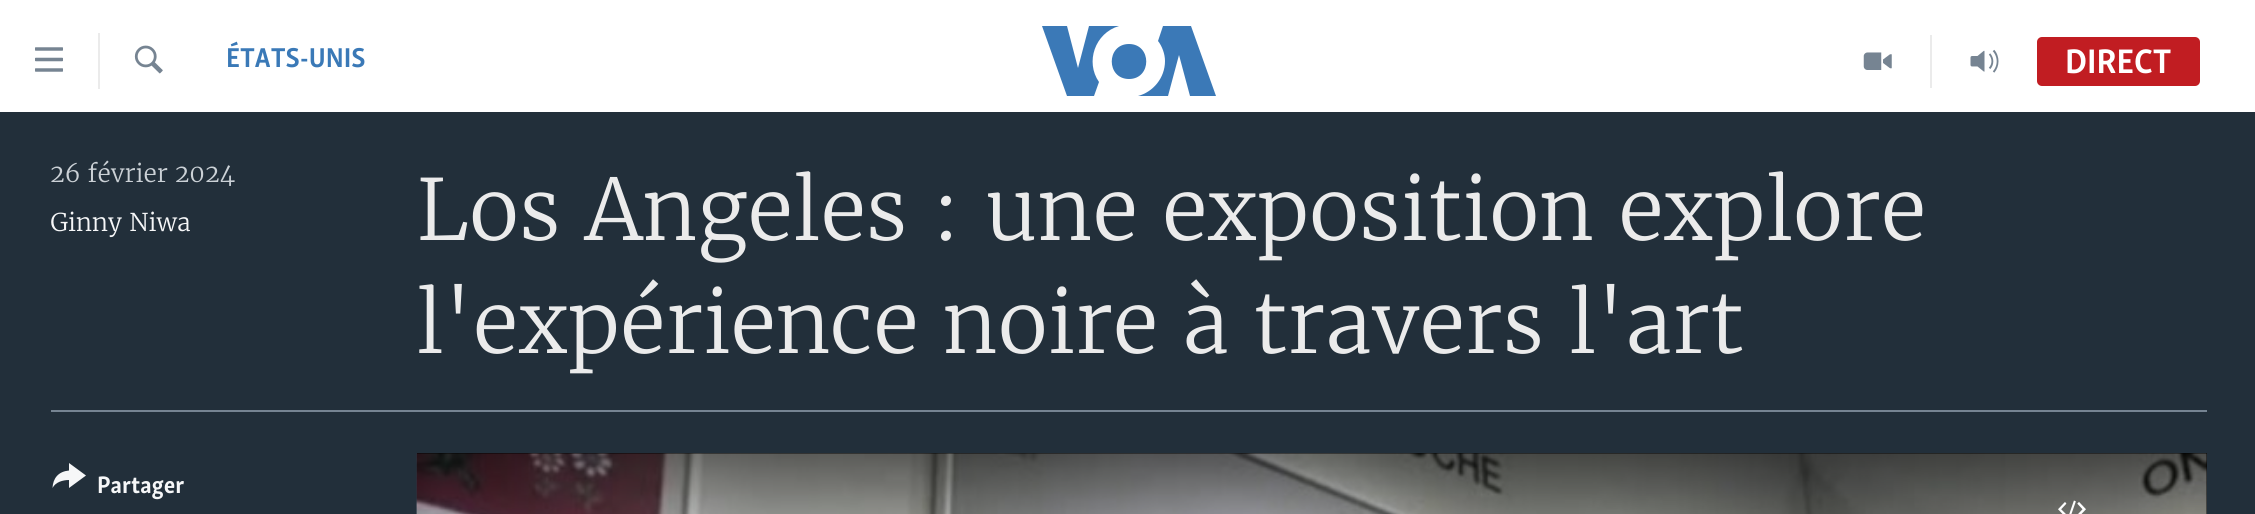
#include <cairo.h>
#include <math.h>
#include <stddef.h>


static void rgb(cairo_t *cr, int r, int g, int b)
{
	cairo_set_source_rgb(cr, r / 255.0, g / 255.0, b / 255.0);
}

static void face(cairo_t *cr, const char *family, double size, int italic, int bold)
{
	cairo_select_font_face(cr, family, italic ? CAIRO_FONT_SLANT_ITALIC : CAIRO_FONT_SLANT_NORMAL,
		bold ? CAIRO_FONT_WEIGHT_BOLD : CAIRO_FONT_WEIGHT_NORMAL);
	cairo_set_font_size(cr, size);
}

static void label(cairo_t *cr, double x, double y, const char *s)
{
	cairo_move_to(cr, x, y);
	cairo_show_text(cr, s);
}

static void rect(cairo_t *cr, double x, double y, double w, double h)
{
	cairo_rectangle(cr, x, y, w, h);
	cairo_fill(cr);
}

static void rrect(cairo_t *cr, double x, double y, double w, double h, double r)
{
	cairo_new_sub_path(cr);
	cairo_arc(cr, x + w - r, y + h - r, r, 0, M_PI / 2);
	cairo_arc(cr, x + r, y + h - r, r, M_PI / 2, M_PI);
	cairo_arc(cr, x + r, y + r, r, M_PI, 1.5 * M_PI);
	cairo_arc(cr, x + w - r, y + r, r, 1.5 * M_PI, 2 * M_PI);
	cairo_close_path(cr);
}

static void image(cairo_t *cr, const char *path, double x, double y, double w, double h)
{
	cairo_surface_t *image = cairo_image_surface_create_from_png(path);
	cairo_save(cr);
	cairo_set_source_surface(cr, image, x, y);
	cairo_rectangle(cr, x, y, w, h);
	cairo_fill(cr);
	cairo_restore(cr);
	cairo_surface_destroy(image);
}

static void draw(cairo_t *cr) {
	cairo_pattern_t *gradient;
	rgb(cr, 255, 255, 255);
	cairo_paint(cr);
	image(cr, "image0.png", 35, 47, 28, 25);
	rgb(cr, 235, 235, 235);
	rect(cr, 98, 33, 2, 56);
	image(cr, "image1.png", 134, 45, 29, 29);
	face(cr, "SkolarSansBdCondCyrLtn", 28, 0, 1);
	rgb(cr, 58, 121, 183);
	label(cr, 226, 67, "ÉTATS-UNIS");
	rgb(cr, 59, 121, 183);
	cairo_new_path(cr);
	cairo_move_to(cr, 1099, 82);
	cairo_line_to(cr, 1094, 96);
	cairo_line_to(cr, 1067, 96);
	cairo_line_to(cr, 1042, 26);
	cairo_line_to(cr, 1067, 26);
	cairo_line_to(cr, 1078, 68);
	cairo_line_to(cr, 1089, 26);
	cairo_line_to(cr, 1119, 26);
	cairo_curve_to(cr, 1095, 33, 1085, 62, 1099, 82);
	cairo_close_path(cr);
	cairo_move_to(cr, 1129, 44);
	cairo_curve_to(cr, 1106, 44, 1106, 79, 1129, 79);
	cairo_curve_to(cr, 1152, 79, 1152, 44, 1129, 44);
	cairo_close_path(cr);
	cairo_move_to(cr, 1165, 61);
	cairo_curve_to(cr, 1165, 78, 1153, 92, 1138, 96);
	cairo_line_to(cr, 1168, 96);
	cairo_line_to(cr, 1179, 55);
	cairo_line_to(cr, 1190, 96);
	cairo_line_to(cr, 1216, 96);
	cairo_line_to(cr, 1191, 26);
	cairo_line_to(cr, 1163, 26);
	cairo_line_to(cr, 1158, 41);
	cairo_curve_to(cr, 1162, 46, 1165, 54, 1165, 61);
	cairo_close_path(cr);
	cairo_fill(cr);
	rgb(cr, 235, 235, 235);
	rect(cr, 1930, 35, 2, 53);
	image(cr, "image2.png", 1863, 52, 29, 18);
	image(cr, "image3.png", 1970, 49, 29, 24);
	rgb(cr, 193, 29, 34);
	rrect(cr, 2037, 37, 163, 49, 5);
	cairo_fill(cr);
	face(cr, "SkolarSansBdCondCyrLtn", 35, 0, 1);
	rgb(cr, 255, 255, 255);
	label(cr, 2065, 73, "DIRECT");
	rgb(cr, 34, 47, 58);
	rect(cr, 0, 112, 2255, 402);
	face(cr, "Merriweather Light", 24.5, 0, 0);
	rgb(cr, 203, 209, 214);
	label(cr, 50, 182, "26 février 2024");
	rgb(cr, 246, 247, 248);
	label(cr, 50, 231, "Ginny Niwa");
	face(cr, "Merriweather Light", 84, 0, 0);
	rgb(cr, 235, 235, 235);
	label(cr, 416, 240, "Los Angeles : une exposition explore");
	label(cr, 416, 353, "l'expérience noire à travers l'art");
	rgb(cr, 118, 132, 146);
	rect(cr, 51, 410, 2156, 2);
	rgb(cr, 246, 247, 248);
	cairo_new_path(cr);
	cairo_move_to(cr, 52.5, 488);
	cairo_curve_to(cr, 53, 478, 58.5, 471.5, 69, 470.5);
	cairo_line_to(cr, 69, 463);
	cairo_line_to(cr, 86, 475.5);
	cairo_line_to(cr, 69, 488);
	cairo_line_to(cr, 69, 480);
	cairo_curve_to(cr, 63, 480, 55.5, 482, 52.5, 488);
	cairo_close_path(cr);
	cairo_fill(cr);
	face(cr, "SkolarSansBdCondCyrLtn", 24.5, 0, 1);
	label(cr, 97, 493, "Partager");
	rgb(cr, 0, 0, 0);
	rect(cr, 417, 453, 1790, 61);
	image(cr, "image4.png", 416, 453, 1791, 61);
	gradient = cairo_pattern_create_linear(1312, 453, 1312, 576);
	cairo_pattern_add_color_stop_rgba(gradient, 0, 0, 0, 0, 0.5);
	cairo_pattern_add_color_stop_rgba(gradient, 1, 0, 0, 0, 0);
	cairo_set_source(cr, gradient);
	cairo_pattern_destroy(gradient);
	rect(cr, 417, 453, 1790, 61);
	image(cr, "image5.png", 2058, 500, 28, 14);
}

int main(void) {
	cairo_surface_t *surface = cairo_image_surface_create(CAIRO_FORMAT_RGB24, 2255, 514);
	cairo_t *cr = cairo_create(surface);
	cairo_font_options_t *options = cairo_font_options_create();
	cairo_font_options_set_hint_metrics(options, CAIRO_HINT_METRICS_OFF);
	cairo_font_options_set_hint_style(options, CAIRO_HINT_STYLE_NONE);
	cairo_set_font_options(cr, options);
	cairo_set_miter_limit(cr, 4);
	draw(cr);
	cairo_surface_write_to_png(surface, "render.png");
	cairo_font_options_destroy(options);
	cairo_destroy(cr);
	cairo_surface_destroy(surface);
	return 0;
}
